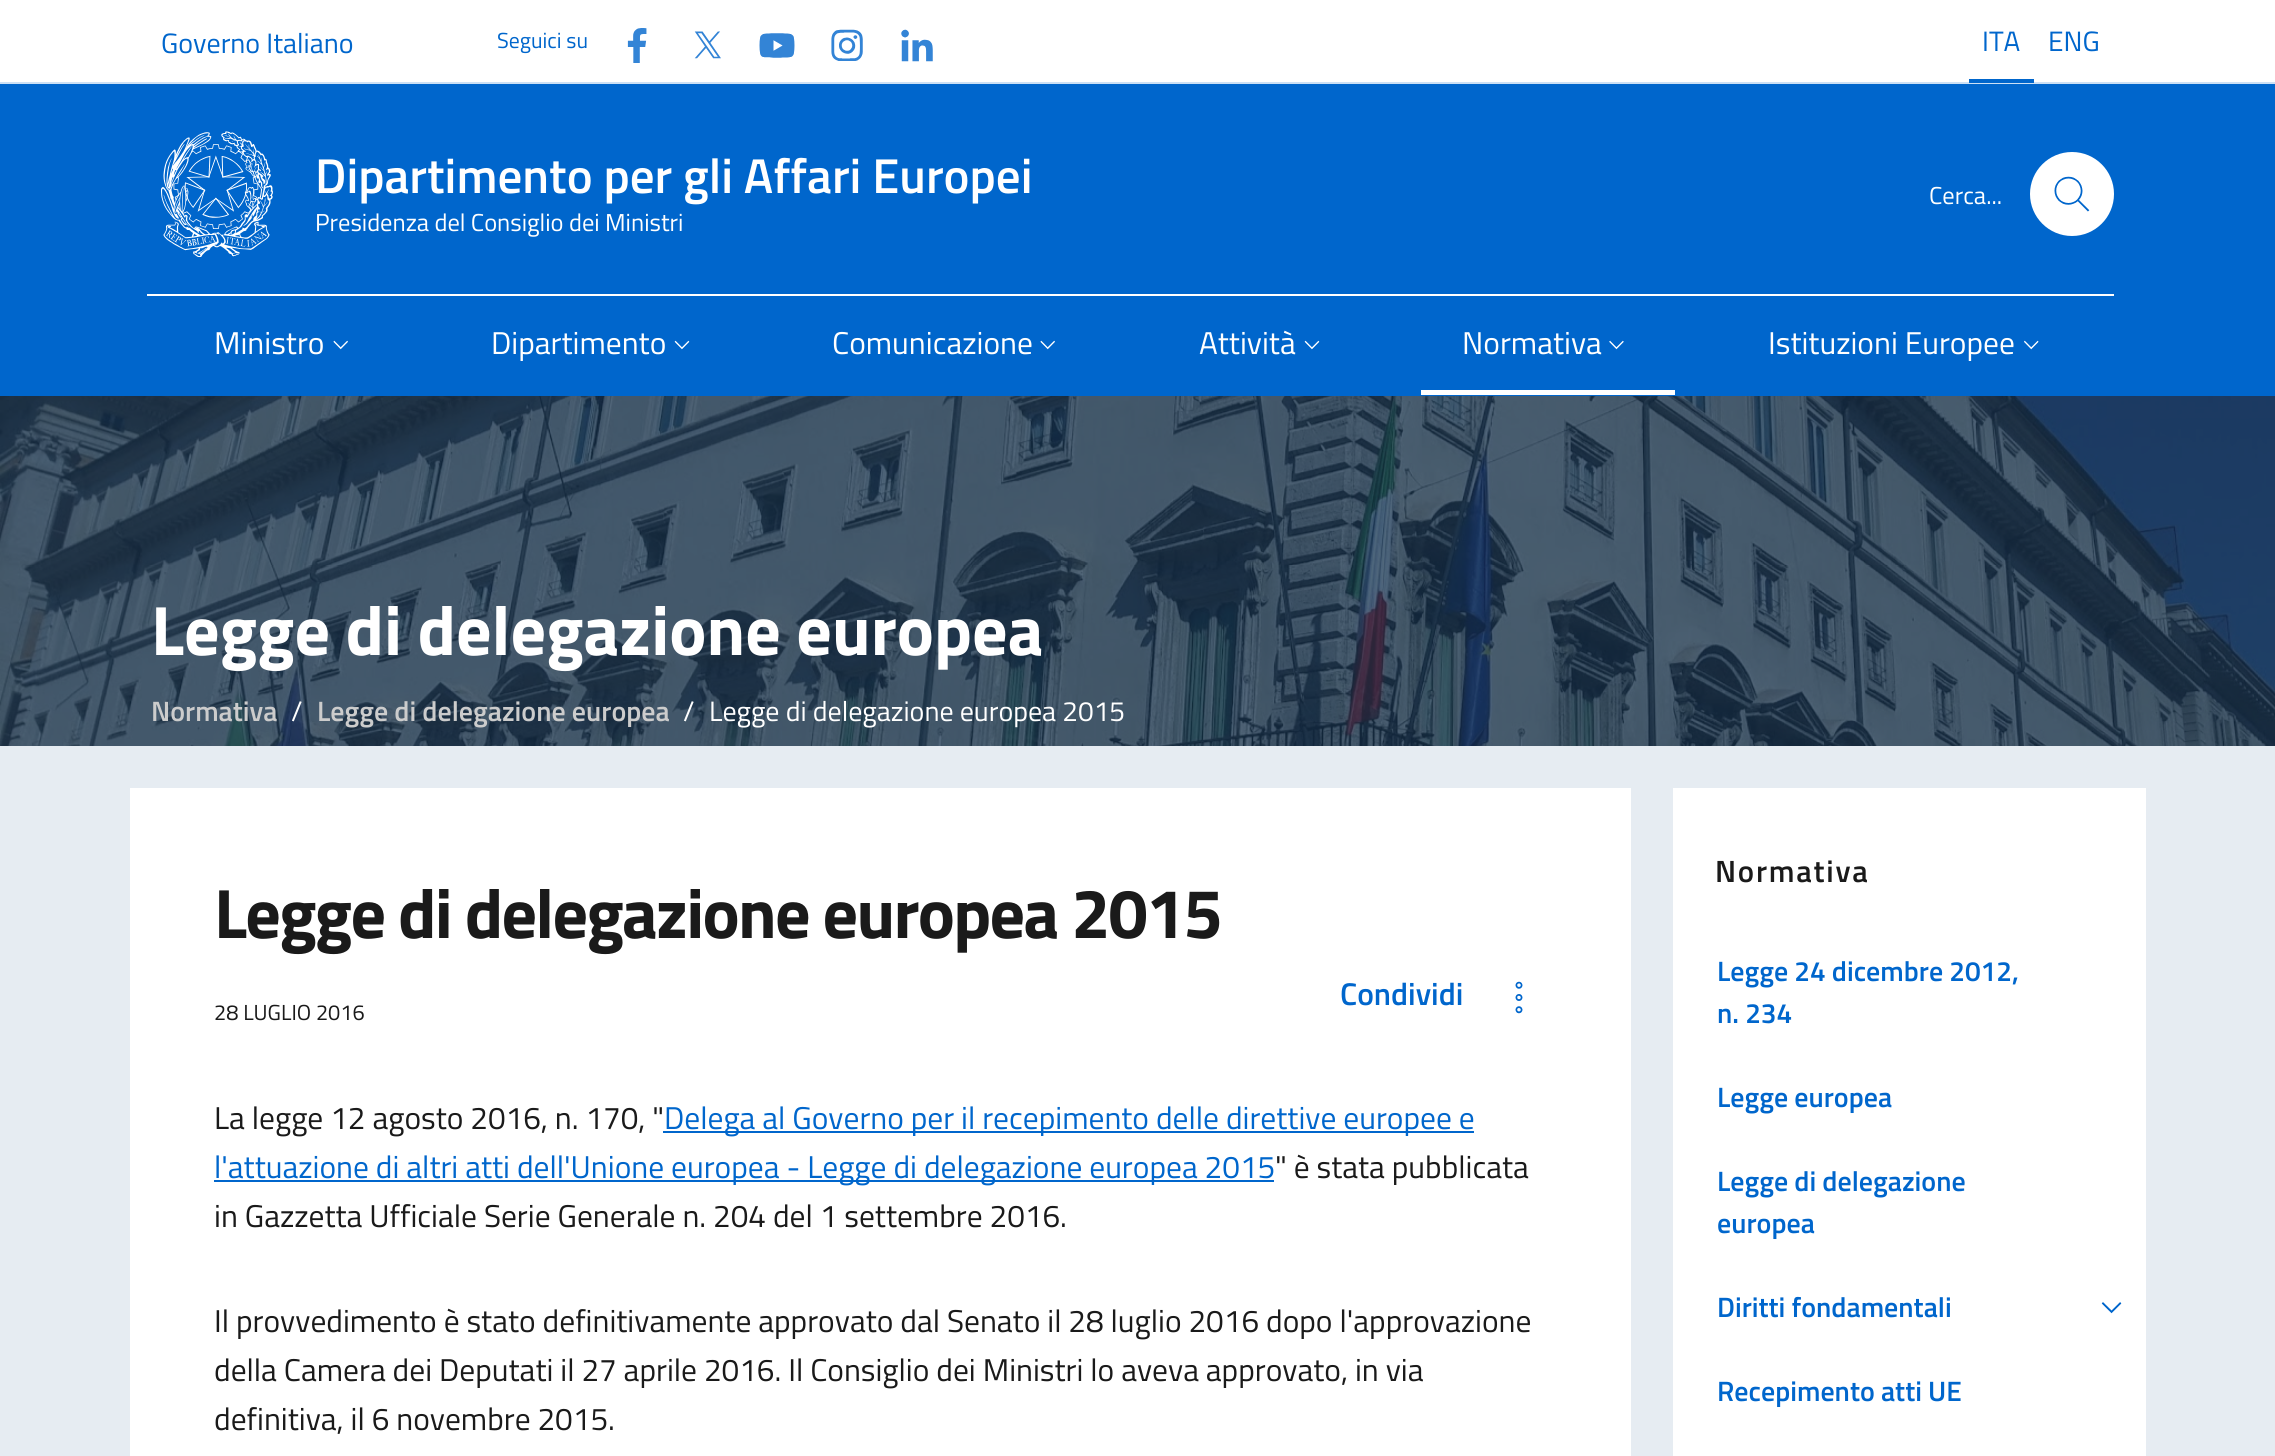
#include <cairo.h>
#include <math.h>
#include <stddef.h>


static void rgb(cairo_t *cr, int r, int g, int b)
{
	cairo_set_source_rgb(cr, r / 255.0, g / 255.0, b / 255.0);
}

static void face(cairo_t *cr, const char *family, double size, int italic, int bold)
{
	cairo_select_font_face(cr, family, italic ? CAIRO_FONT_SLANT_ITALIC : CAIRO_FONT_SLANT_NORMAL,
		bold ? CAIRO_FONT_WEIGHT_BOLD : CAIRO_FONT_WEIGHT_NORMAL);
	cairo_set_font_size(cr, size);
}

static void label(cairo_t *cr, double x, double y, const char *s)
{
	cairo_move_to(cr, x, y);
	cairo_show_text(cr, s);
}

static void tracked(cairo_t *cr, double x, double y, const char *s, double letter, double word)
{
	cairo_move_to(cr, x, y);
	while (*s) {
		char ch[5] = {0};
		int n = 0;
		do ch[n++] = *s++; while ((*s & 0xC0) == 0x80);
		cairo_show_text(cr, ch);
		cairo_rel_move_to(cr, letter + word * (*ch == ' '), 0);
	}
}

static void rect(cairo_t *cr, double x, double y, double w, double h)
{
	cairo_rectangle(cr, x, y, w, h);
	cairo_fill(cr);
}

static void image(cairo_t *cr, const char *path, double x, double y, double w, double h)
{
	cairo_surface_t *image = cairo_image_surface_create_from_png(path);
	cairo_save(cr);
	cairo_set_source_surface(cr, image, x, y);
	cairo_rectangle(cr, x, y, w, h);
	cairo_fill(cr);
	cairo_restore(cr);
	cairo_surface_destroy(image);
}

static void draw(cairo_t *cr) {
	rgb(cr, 255, 255, 255);
	cairo_paint(cr);
	rgb(cr, 204, 224, 245);
	rect(cr, 0, 82, 2275, 2);
	face(cr, "Titillium Web", 28, 0, 0);
	rgb(cr, 0, 102, 204);
	label(cr, 161, 53, "Governo Italiano");
	face(cr, "Titillium Web", 21.75, 0, 0);
	label(cr, 497, 48, "Seguici su");
	image(cr, "image0.png", 627, 28, 20, 35);
	image(cr, "image1.png", 694, 31, 27, 28);
	image(cr, "image2.png", 759, 33, 36, 25);
	image(cr, "image3.png", 831, 29, 32, 32);
	image(cr, "image4.png", 901, 29, 32, 33);
	rect(cr, 1969, 79, 65, 4);
	face(cr, "Titillium Web", 28, 0, 0);
	label(cr, 1982, 51, "ITA");
	label(cr, 2048, 51, "ENG");
	rect(cr, 0, 84, 2275, 312);
	image(cr, "image5.png", 161, 131, 112, 126);
	face(cr, "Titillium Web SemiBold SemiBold", 49, 0, 0);
	rgb(cr, 255, 255, 255);
	label(cr, 315, 193, "Dipartimento per gli Affari Europei");
	face(cr, "Titillium Web", 24.5, 0, 0);
	label(cr, 315, 231, "Presidenza del Consiglio dei Ministri");
	label(cr, 1929, 204, "Cerca...");
	cairo_new_path(cr);
	cairo_arc(cr, 2072, 194, 42, 0, 2 * M_PI);
	cairo_fill(cr);
	image(cr, "image6.png", 2054, 176, 36, 36);
	rect(cr, 147, 294, 1967, 2);
	face(cr, "Titillium Web", 31.5, 0, 0);
	label(cr, 214, 354, "Ministro");
	image(cr, "image7.png", 333, 340, 15, 10);
	label(cr, 491, 354, "Dipartimento");
	image(cr, "image8.png", 674, 340, 16, 10);
	label(cr, 832, 354, "Comunicazione");
	image(cr, "image7.png", 1040, 340, 15, 10);
	label(cr, 1199, 354, "Attività");
	image(cr, "image8.png", 1304, 340, 16, 10);
	rect(cr, 1421, 390, 254, 5);
	label(cr, 1462, 354, "Normativa");
	image(cr, "image9.png", 1609, 340, 15, 10);
	label(cr, 1768, 354, "Istituzioni Europee");
	image(cr, "image10.png", 2024, 340, 15, 10);
	image(cr, "image11.png", 0, 396, 2275, 350);
	rgb(cr, 230, 236, 242);
	rect(cr, 0, 746, 2275, 710);
	face(cr, "Titillium Web", 70, 0, 1);
	rgb(cr, 255, 255, 255);
	label(cr, 151, 655, "Legge di delegazione europea");
	face(cr, "Titillium Web SemiBold SemiBold", 28, 0, 0);
	rgb(cr, 204, 204, 204);
	label(cr, 151, 721, "Normativa");
	face(cr, "Titillium Web", 28, 0, 0);
	rgb(cr, 255, 255, 255);
	label(cr, 291, 721, "/");
	face(cr, "Titillium Web SemiBold SemiBold", 28, 0, 0);
	rgb(cr, 204, 204, 204);
	label(cr, 317, 721, "Legge di delegazione europea");
	face(cr, "Titillium Web", 28, 0, 0);
	rgb(cr, 255, 255, 255);
	label(cr, 683, 721, "/");
	label(cr, 709, 721, "Legge di delegazione europea 2015");
	rect(cr, 130, 788, 1501, 668);
	face(cr, "Titillium Web", 70, 0, 1);
	rgb(cr, 26, 26, 26);
	tracked(cr, 214, 938, "Legge di delegazione europea 2015", -1.75, 0);
	face(cr, "Titillium Web SemiBold SemiBold", 31.5, 0, 0);
	rgb(cr, 0, 102, 204);
	label(cr, 1340, 1005, "Condividi");
	image(cr, "image12.png", 1515, 981, 8, 33);
	face(cr, "Titillium Web", 21.75, 0, 0);
	rgb(cr, 26, 26, 26);
	label(cr, 214, 1020, "28 LUGLIO 2016");
	face(cr, "Titillium Web", 31.5, 0, 0);
	label(cr, 214, 1129, "La legge 12 agosto 2016, n. 170, \"");
	rgb(cr, 0, 102, 204);
	rect(cr, 663, 1131, 811, 2);
	label(cr, 664, 1129, "Delega al Governo per il recepimento delle direttive europee e");
	rect(cr, 214, 1180, 1060, 2);
	label(cr, 214, 1178, "l'attuazione di altri atti dell'Unione europea - Legge di delegazione europea 2015");
	rgb(cr, 26, 26, 26);
	label(cr, 1275, 1178, "\" è stata pubblicata");
	label(cr, 214, 1227, "in Gazzetta Ufficiale Serie Generale n. 204 del 1 settembre 2016.");
	label(cr, 214, 1332, "Il provvedimento è stato definitivamente approvato dal Senato il 28 luglio 2016 dopo l'approvazione");
	label(cr, 214, 1381, "della Camera dei Deputati il 27 aprile 2016. Il Consiglio dei Ministri lo aveva approvato, in via");
	label(cr, 214, 1430, "definitiva, il 6 novembre 2015.");
	rgb(cr, 255, 255, 255);
	rect(cr, 1673, 788, 473, 668);
	face(cr, "Titillium Web SemiBold SemiBold", 30.75, 0, 0);
	rgb(cr, 26, 26, 26);
	tracked(cr, 1715, 882, "Normativa", 1.75, 0);
	face(cr, "Titillium Web SemiBold SemiBold", 28, 0, 0);
	rgb(cr, 0, 102, 204);
	label(cr, 1717, 981, "Legge 24 dicembre 2012,");
	label(cr, 1717, 1023, "n. 234");
	label(cr, 1717, 1107, "Legge europea");
	label(cr, 1717, 1191, "Legge di delegazione");
	label(cr, 1717, 1233, "europea");
	label(cr, 1717, 1317, "Diritti fondamentali");
	image(cr, "image13.png", 2101, 1302, 21, 12);
	label(cr, 1717, 1401, "Recepimento atti UE");
}

int main(void) {
	cairo_surface_t *surface = cairo_image_surface_create(CAIRO_FORMAT_RGB24, 2275, 1456);
	cairo_t *cr = cairo_create(surface);
	cairo_font_options_t *options = cairo_font_options_create();
	cairo_font_options_set_hint_metrics(options, CAIRO_HINT_METRICS_OFF);
	cairo_font_options_set_hint_style(options, CAIRO_HINT_STYLE_NONE);
	cairo_set_font_options(cr, options);
	cairo_set_miter_limit(cr, 4);
	draw(cr);
	cairo_surface_write_to_png(surface, "render.png");
	cairo_font_options_destroy(options);
	cairo_destroy(cr);
	cairo_surface_destroy(surface);
	return 0;
}
